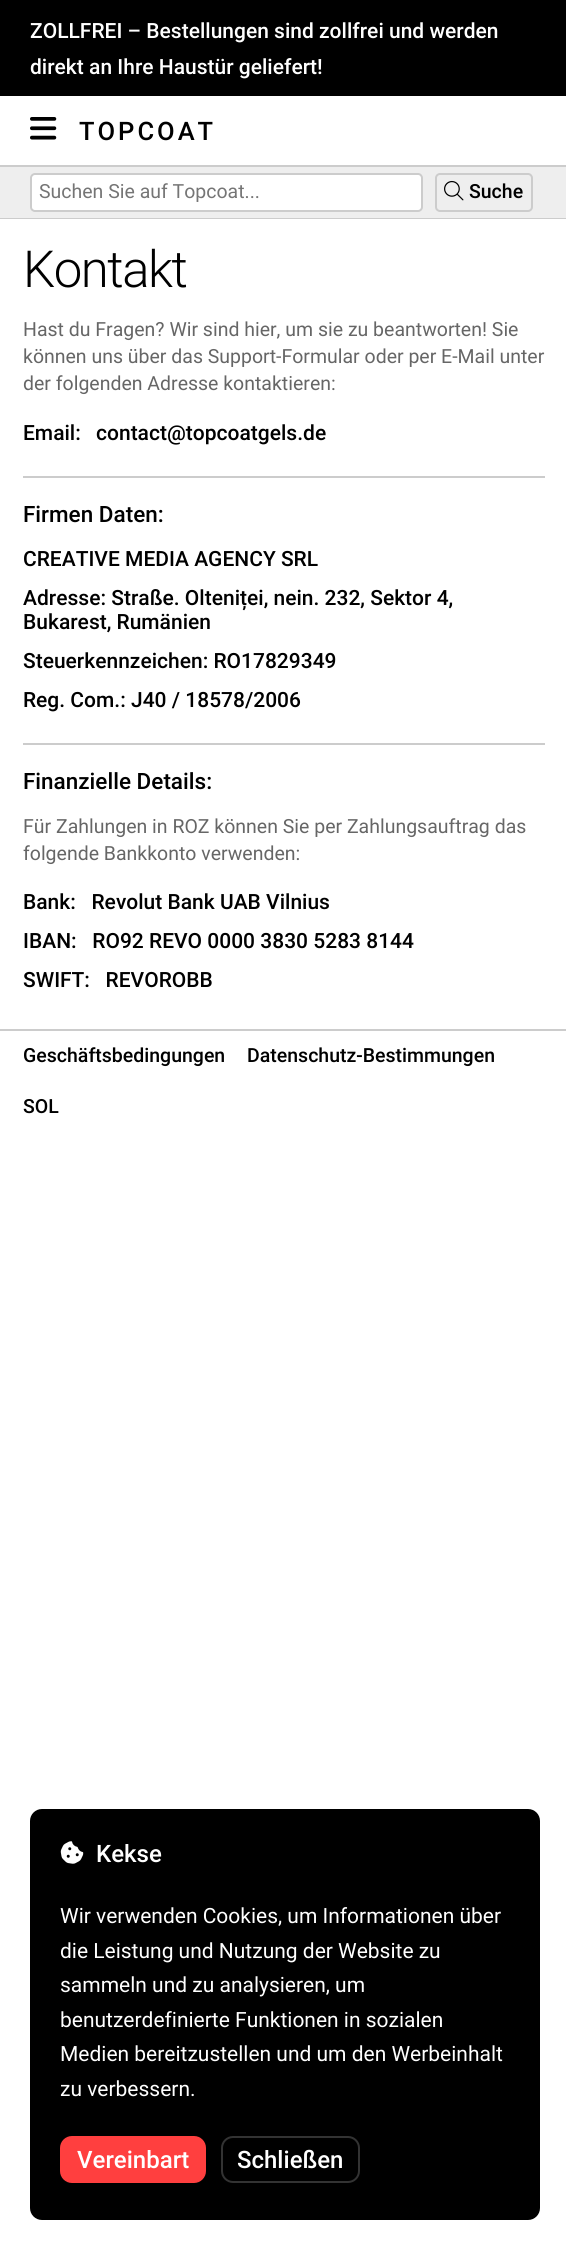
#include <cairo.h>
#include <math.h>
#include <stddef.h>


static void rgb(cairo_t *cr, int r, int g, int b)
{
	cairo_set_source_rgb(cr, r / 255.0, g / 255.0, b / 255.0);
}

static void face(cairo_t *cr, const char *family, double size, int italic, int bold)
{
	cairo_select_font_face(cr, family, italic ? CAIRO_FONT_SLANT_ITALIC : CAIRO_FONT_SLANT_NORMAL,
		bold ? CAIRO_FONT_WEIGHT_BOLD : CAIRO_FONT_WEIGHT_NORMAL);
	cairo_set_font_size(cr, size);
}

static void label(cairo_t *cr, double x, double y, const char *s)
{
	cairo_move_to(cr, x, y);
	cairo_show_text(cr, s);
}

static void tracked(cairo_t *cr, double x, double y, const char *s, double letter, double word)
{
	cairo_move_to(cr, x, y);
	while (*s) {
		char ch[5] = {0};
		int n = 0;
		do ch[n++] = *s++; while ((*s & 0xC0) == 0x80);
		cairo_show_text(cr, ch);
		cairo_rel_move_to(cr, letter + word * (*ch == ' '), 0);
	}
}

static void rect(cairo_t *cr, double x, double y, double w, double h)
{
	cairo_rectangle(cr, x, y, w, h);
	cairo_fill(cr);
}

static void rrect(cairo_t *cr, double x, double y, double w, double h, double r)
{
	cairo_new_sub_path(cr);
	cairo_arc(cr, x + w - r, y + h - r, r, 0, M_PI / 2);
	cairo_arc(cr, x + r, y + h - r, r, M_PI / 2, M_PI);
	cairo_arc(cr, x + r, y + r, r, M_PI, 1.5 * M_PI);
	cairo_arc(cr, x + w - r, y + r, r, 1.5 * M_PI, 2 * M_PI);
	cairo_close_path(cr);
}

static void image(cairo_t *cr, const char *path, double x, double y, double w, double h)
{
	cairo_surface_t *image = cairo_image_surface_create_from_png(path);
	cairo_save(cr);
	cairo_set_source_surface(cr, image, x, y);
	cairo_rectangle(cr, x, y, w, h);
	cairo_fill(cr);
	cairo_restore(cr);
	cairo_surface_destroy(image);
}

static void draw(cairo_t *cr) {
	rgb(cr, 255, 255, 255);
	cairo_paint(cr);
	rgb(cr, 0, 0, 0);
	rect(cr, 0, 0, 566, 96);
	face(cr, "Roboto Medium", 21, 0, 0);
	rgb(cr, 255, 255, 255);
	label(cr, 30, 38, "ZOLLFREI – Bestellungen sind zollfrei und werden");
	label(cr, 30, 74, "direkt an Ihre Haustür geliefert!");
	image(cr, "image0.png", 30, 117, 27, 23);
	face(cr, "Roboto Medium", 25.5, 0, 0);
	rgb(cr, 0, 0, 0);
	tracked(cr, 79, 140, "TOPCOAT", 3, 0);
	rgb(cr, 238, 238, 238);
	rect(cr, 0, 167, 566, 51);
	rgb(cr, 204, 204, 204);
	rect(cr, 0, 165, 566, 2);
	rgb(cr, 255, 255, 255);
	rrect(cr, 31, 174, 391, 37, 4);
	cairo_fill_preserve(cr);
	rgb(cr, 204, 204, 204);
	cairo_stroke(cr);
	face(cr, "Roboto", 19.5, 0, 0);
	rgb(cr, 117, 117, 117);
	label(cr, 39, 198, "Suchen Sie auf Topcoat...");
	rrect(cr, 436, 174, 96, 37, 4);
	rgb(cr, 204, 204, 204);
	cairo_stroke(cr);
	image(cr, "image1.png", 444, 180, 20, 21);
	face(cr, "Roboto Medium", 19.5, 0, 0);
	rgb(cr, 0, 0, 0);
	label(cr, 469, 198, "Suche");
	rgb(cr, 204, 204, 204);
	rect(cr, 0, 218, 566, 1);
	face(cr, "Roboto Light", 51, 0, 0);
	rgb(cr, 0, 0, 0);
	tracked(cr, 23, 287, "Kontakt", -1.5, 0);
	face(cr, "Roboto", 19.5, 0, 0);
	rgb(cr, 102, 102, 102);
	label(cr, 23, 336, "Hast du Fragen? Wir sind hier, um sie zu beantworten! Sie");
	label(cr, 23, 363, "können uns über das Support-Formular oder per E-Mail unter");
	label(cr, 23, 390, "der folgenden Adresse kontaktieren:");
	face(cr, "Roboto Medium", 21, 0, 0);
	rgb(cr, 0, 0, 0);
	label(cr, 23, 440, "Email:");
	label(cr, 96, 440, "contact@topcoatgels.de");
	rgb(cr, 204, 204, 204);
	rect(cr, 23, 476, 522, 2);
	face(cr, "Roboto Medium", 22.5, 0, 0);
	rgb(cr, 0, 0, 0);
	label(cr, 23, 522, "Firmen Daten:");
	face(cr, "Roboto Medium", 21, 0, 0);
	label(cr, 23, 566, "CREATIVE MEDIA AGENCY SRL");
	label(cr, 23, 605, "Adresse: Straße. Olteniței, nein. 232, Sektor 4,");
	label(cr, 23, 629, "Bukarest, Rumänien");
	label(cr, 23, 668, "Steuerkennzeichen: RO17829349");
	label(cr, 23, 707, "Reg. Com.: J40 / 18578/2006");
	rgb(cr, 204, 204, 204);
	rect(cr, 23, 743, 522, 2);
	face(cr, "Roboto Medium", 22.5, 0, 0);
	rgb(cr, 0, 0, 0);
	label(cr, 23, 789, "Finanzielle Details:");
	face(cr, "Roboto", 19.5, 0, 0);
	rgb(cr, 102, 102, 102);
	label(cr, 23, 833, "Für Zahlungen in ROZ können Sie per Zahlungsauftrag das");
	label(cr, 23, 860, "folgende Bankkonto verwenden:");
	face(cr, "Roboto Medium", 21, 0, 0);
	rgb(cr, 0, 0, 0);
	label(cr, 23, 909, "Bank:   Revolut Bank UAB Vilnius");
	label(cr, 23, 948, "IBAN:   RO92 REVO 0000 3830 5283 8144");
	label(cr, 23, 987, "SWIFT:   REVOROBB");
	rgb(cr, 204, 204, 204);
	rect(cr, 0, 1029, 566, 2);
	face(cr, "Roboto Medium", 19.5, 0, 0);
	rgb(cr, 0, 0, 0);
	label(cr, 23, 1062, "Geschäftsbedingungen");
	label(cr, 247, 1062, "Datenschutz-Bestimmungen");
	label(cr, 23, 1113, "SOL");
	rrect(cr, 30, 1809, 510, 411, 12);
	cairo_fill(cr);
	image(cr, "image2.png", 60, 1841, 24, 23);
	face(cr, "Roboto Medium", 24, 0, 0);
	rgb(cr, 255, 255, 255);
	label(cr, 96, 1862, "Kekse");
	face(cr, "Roboto", 21, 0, 0);
	label(cr, 60, 1923, "Wir verwenden Cookies, um Informationen über");
	label(cr, 60, 1958, "die Leistung und Nutzung der Website zu");
	label(cr, 60, 1992, "sammeln und zu analysieren, um");
	label(cr, 60, 2027, "benutzerdefinierte Funktionen in sozialen");
	label(cr, 60, 2061, "Medien bereitzustellen und um den Werbeinhalt");
	label(cr, 60, 2096, "zu verbessern.");
	rgb(cr, 255, 63, 63);
	rrect(cr, 61, 2137, 144, 45, 11);
	cairo_fill_preserve(cr);
	cairo_stroke(cr);
	face(cr, "Roboto Medium", 24, 0, 0);
	rgb(cr, 255, 255, 255);
	label(cr, 77, 2168, "Vereinbart");
	rrect(cr, 222, 2137, 137, 45, 11);
	rgb(cr, 51, 51, 51);
	cairo_stroke(cr);
	rgb(cr, 255, 255, 255);
	label(cr, 237, 2168, "Schließen");
}

int main(void) {
	cairo_surface_t *surface = cairo_image_surface_create(CAIRO_FORMAT_RGB24, 566, 2249);
	cairo_t *cr = cairo_create(surface);
	cairo_font_options_t *options = cairo_font_options_create();
	cairo_font_options_set_hint_metrics(options, CAIRO_HINT_METRICS_OFF);
	cairo_font_options_set_hint_style(options, CAIRO_HINT_STYLE_NONE);
	cairo_set_font_options(cr, options);
	cairo_set_miter_limit(cr, 4);
	draw(cr);
	cairo_surface_write_to_png(surface, "render.png");
	cairo_font_options_destroy(options);
	cairo_destroy(cr);
	cairo_surface_destroy(surface);
	return 0;
}
